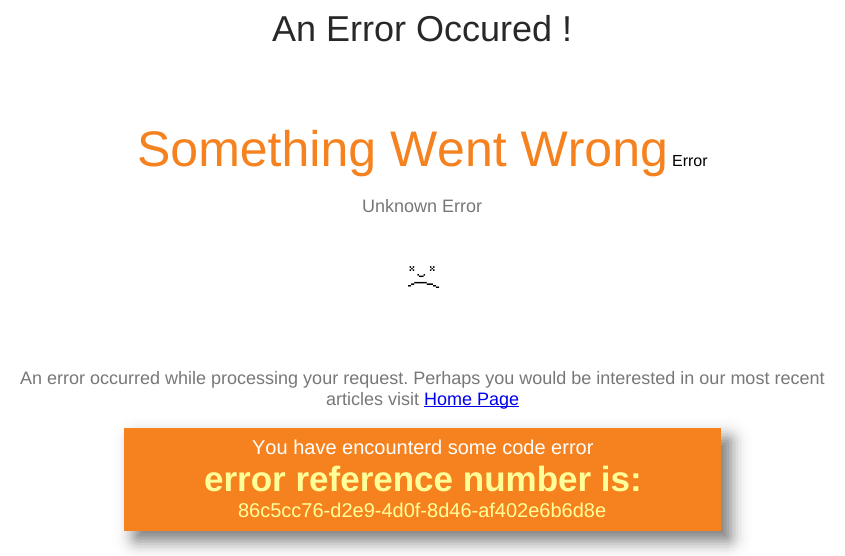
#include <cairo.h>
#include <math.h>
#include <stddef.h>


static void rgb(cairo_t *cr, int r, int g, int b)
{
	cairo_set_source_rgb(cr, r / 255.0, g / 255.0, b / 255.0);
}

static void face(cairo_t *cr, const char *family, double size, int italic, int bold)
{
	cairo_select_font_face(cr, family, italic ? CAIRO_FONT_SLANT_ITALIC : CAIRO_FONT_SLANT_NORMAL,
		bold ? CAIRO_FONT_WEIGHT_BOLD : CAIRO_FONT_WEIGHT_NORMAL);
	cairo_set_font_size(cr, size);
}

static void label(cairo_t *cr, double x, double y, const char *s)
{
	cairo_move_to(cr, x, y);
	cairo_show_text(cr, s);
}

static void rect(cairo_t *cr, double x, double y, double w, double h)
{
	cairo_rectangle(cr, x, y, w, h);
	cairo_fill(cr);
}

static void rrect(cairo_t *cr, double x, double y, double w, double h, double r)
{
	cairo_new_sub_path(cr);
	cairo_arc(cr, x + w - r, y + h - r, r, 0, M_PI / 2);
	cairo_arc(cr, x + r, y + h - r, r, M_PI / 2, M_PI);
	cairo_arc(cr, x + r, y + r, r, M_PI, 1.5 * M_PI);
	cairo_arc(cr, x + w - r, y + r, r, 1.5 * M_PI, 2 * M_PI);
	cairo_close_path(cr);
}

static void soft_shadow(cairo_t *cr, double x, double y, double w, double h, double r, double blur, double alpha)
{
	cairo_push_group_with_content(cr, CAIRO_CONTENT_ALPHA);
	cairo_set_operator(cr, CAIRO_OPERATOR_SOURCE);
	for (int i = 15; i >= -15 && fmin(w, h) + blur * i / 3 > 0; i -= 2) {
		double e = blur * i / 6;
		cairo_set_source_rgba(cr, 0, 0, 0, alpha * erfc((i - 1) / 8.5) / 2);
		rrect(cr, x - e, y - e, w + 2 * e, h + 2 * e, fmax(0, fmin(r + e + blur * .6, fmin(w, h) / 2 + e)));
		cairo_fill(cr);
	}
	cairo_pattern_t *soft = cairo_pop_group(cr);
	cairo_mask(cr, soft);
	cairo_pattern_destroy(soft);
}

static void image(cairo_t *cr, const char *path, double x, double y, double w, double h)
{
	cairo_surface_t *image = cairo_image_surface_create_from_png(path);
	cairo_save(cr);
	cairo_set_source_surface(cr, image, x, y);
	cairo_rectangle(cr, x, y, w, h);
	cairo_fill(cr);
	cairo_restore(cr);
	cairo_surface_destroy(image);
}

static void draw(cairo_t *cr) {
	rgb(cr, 255, 255, 255);
	cairo_paint(cr);
	face(cr, "Liberation Sans", 36, 0, 0);
	rgb(cr, 40, 40, 40);
	label(cr, 272, 41, "An Error Occured !");
	face(cr, "Liberation Sans", 50, 0, 0);
	rgb(cr, 245, 130, 31);
	label(cr, 137, 166, "Something Went Wrong");
	face(cr, "Liberation Sans", 16, 0, 0);
	rgb(cr, 0, 0, 0);
	label(cr, 672, 166, "Error");
	face(cr, "Liberation Sans", 18, 0, 0);
	rgb(cr, 119, 119, 119);
	label(cr, 362, 212, "Unknown Error");
	image(cr, "image0.png", 408, 266, 32, 22);
	label(cr, 20, 384, "An error occurred while processing your request. Perhaps you would be interested in our most recent");
	label(cr, 326, 405, "articles visit");
	rgb(cr, 0, 0, 238);
	rect(cr, 424, 406, 95, 1);
	label(cr, 424, 405, "Home Page");
	rgb(cr, 121, 121, 121);
	soft_shadow(cr, 134, 438, 597, 103, 0, 9, 1);
	rgb(cr, 245, 130, 31);
	rect(cr, 124, 428, 597, 103);
	face(cr, "Liberation Sans", 20, 0, 0);
	rgb(cr, 255, 255, 255);
	label(cr, 252, 454, "You have encounterd some code error");
	face(cr, "Liberation Sans", 35, 0, 1);
	rgb(cr, 255, 255, 153);
	label(cr, 204, 491, "error reference number is:");
	face(cr, "Liberation Sans", 20, 0, 0);
	label(cr, 238, 517, "86c5cc76-d2e9-4d0f-8d46-af402e6b6d8e");
}

int main(void) {
	cairo_surface_t *surface = cairo_image_surface_create(CAIRO_FORMAT_RGB24, 845, 556);
	cairo_t *cr = cairo_create(surface);
	cairo_font_options_t *options = cairo_font_options_create();
	cairo_font_options_set_hint_metrics(options, CAIRO_HINT_METRICS_OFF);
	cairo_font_options_set_hint_style(options, CAIRO_HINT_STYLE_NONE);
	cairo_set_font_options(cr, options);
	cairo_set_miter_limit(cr, 4);
	draw(cr);
	cairo_surface_write_to_png(surface, "render.png");
	cairo_font_options_destroy(options);
	cairo_destroy(cr);
	cairo_surface_destroy(surface);
	return 0;
}
